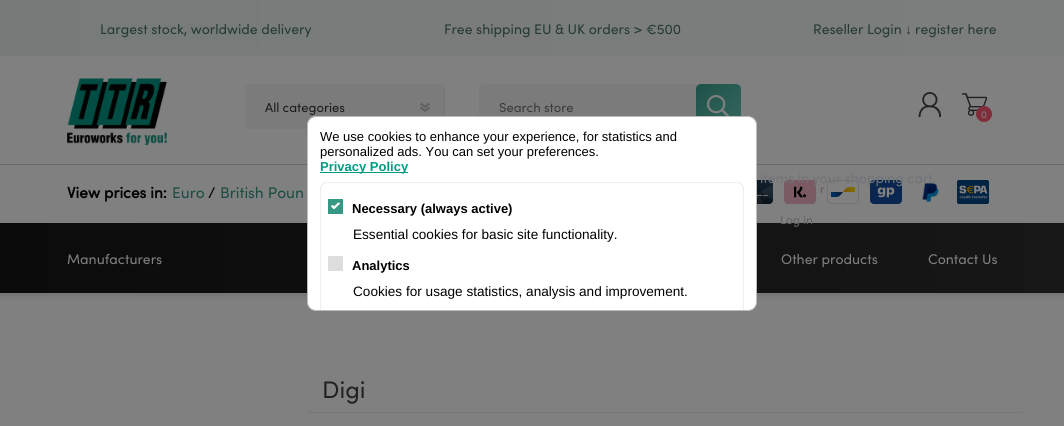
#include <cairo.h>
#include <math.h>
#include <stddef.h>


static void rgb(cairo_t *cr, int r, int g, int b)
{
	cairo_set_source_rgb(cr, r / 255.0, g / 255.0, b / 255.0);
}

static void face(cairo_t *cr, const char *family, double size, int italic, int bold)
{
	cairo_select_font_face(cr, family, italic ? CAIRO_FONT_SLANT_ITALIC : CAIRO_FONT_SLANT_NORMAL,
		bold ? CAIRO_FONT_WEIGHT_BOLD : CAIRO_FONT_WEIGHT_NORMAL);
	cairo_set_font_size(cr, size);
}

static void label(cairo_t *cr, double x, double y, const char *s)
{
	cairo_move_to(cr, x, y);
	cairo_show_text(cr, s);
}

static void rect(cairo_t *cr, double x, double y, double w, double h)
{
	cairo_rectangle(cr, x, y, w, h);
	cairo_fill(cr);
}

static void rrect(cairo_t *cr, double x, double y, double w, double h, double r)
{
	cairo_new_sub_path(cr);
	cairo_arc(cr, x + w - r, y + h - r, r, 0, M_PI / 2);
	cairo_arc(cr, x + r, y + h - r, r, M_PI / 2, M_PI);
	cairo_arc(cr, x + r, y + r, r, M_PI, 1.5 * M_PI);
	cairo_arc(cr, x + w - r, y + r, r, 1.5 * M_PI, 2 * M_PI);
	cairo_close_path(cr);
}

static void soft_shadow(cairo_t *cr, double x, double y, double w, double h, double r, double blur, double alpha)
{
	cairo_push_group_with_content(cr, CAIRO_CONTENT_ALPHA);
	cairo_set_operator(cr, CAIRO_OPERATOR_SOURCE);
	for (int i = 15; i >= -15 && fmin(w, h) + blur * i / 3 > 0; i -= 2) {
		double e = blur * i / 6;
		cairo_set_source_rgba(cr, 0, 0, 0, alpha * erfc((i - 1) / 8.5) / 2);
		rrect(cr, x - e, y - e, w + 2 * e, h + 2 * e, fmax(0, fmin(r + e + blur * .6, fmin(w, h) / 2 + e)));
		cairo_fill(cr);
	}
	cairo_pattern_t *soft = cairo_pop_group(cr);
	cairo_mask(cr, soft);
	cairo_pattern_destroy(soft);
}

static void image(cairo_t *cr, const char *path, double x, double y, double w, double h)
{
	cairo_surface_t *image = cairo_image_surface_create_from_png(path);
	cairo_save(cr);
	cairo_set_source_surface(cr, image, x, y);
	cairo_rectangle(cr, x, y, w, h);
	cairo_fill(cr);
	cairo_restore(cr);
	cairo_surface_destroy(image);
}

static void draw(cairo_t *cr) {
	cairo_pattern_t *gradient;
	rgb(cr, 128, 128, 128);
	cairo_paint(cr);
	gradient = cairo_pattern_create_linear(1064, 28, 0, 27);
	cairo_pattern_add_color_stop_rgba(gradient, 0, 0.486, 0.494, 0.49, 1);
	cairo_pattern_add_color_stop_rgba(gradient, 1, 0.463, 0.482, 0.478, 1);
	cairo_set_source(cr, gradient);
	cairo_pattern_destroy(gradient);
	rect(cr, 0, 0, 1064, 55);
	face(cr, "Sofia", 14, 0, 0);
	rgb(cr, 38, 58, 54);
	label(cr, 100, 34, "Largest stock, worldwide delivery");
	label(cr, 444, 34, "Free shipping EU & UK orders > €500");
	label(cr, 813, 34, "Reseller Login");
	face(cr, "Liberation Sans", 14, 0, 0);
	label(cr, 905, 34, "↓");
	face(cr, "Sofia", 14, 0, 0);
	label(cr, 915, 34, "register here");
	rgb(cr, 123, 123, 123);
	rect(cr, 0, 55, 1064, 1);
	rgb(cr, 106, 106, 106);
	rect(cr, 0, 164, 1064, 1);
	face(cr, "Sofia", 15.5, 0, 1);
	rgb(cr, 0, 0, 0);
	label(cr, 67, 198, "View prices in:");
	face(cr, "Sofia", 15.5, 0, 0);
	rgb(cr, 27, 77, 66);
	label(cr, 172, 198, "Euro");
	rgb(cr, 0, 0, 0);
	label(cr, 208, 198, "/");
	rgb(cr, 27, 77, 66);
	label(cr, 220, 198, "British Poun");
	image(cr, "image0.png", 757, 180, 16, 24);
	image(cr, "image1.png", 784, 180, 32, 24);
	image(cr, "image2.png", 827, 180, 32, 24);
	image(cr, "image3.png", 870, 180, 32, 24);
	image(cr, "image4.png", 922, 183, 17, 19);
	image(cr, "image5.png", 957, 180, 32, 24);
	image(cr, "image6.png", 67, 78, 100, 67);
	rgb(cr, 123, 123, 123);
	rrect(cr, 245, 84, 200, 45, 5);
	cairo_fill(cr);
	image(cr, "image7.png", 420, 102, 10, 10);
	rgb(cr, 119, 119, 119);
	rect(cr, 444, 87, 1, 29);
	face(cr, "Sofia", 13, 0, 0);
	rgb(cr, 28, 28, 28);
	label(cr, 265, 112, "All categories");
	rgb(cr, 123, 123, 123);
	rrect(cr, 479, 84, 220, 45, 5);
	cairo_fill(cr);
	rgb(cr, 59, 59, 59);
	label(cr, 499, 112, "Search store");
	gradient = cairo_pattern_create_linear(741, 129, 696, 84);
	cairo_pattern_add_color_stop_rgba(gradient, 0, 0.212, 0.408, 0.38, 1);
	cairo_pattern_add_color_stop_rgba(gradient, 1, 0.114, 0.318, 0.278, 1);
	cairo_set_source(cr, gradient);
	cairo_pattern_destroy(gradient);
	rrect(cr, 696, 84, 45, 45, 5);
	cairo_fill(cr);
	image(cr, "image8.png", 707, 95, 23, 21);
	image(cr, "image9.png", 962, 93, 26, 23);
	rgb(cr, 128, 44, 58);
	cairo_arc(cr, 984, 114, 8, 0, 2 * M_PI);
	cairo_fill(cr);
	face(cr, "Sofia", 10, 0, 0);
	rgb(cr, 128, 128, 128);
	label(cr, 981, 118, "0");
	face(cr, "Sofia", 14, 0, 0);
	rgb(cr, 113, 115, 119);
	label(cr, 760, 183, "items in your shopping cart.");
	image(cr, "image10.png", 918, 92, 23, 26);
	face(cr, "Sofia", 12, 0, 0);
	rgb(cr, 108, 89, 94);
	label(cr, 820, 193, "r");
	rgb(cr, 0, 0, 0);
	soft_shadow(cr, 0, 226, 1064, 70, 0, 2.5, 0.1);
	gradient = cairo_pattern_create_linear(1064, 258, 0, 258);
	cairo_pattern_add_color_stop_rgba(gradient, 0, 0.09, 0.09, 0.09, 1);
	cairo_pattern_add_color_stop_rgba(gradient, 1, 0.043, 0.043, 0.043, 1);
	cairo_set_source(cr, gradient);
	cairo_pattern_destroy(gradient);
	rect(cr, 0, 223, 1064, 70);
	rgb(cr, 99, 99, 99);
	label(cr, 780, 224, "Log in");
	face(cr, "Sofia", 14, 0, 0);
	rgb(cr, 128, 128, 128);
	label(cr, 67, 264, "Manufacturers");
	label(cr, 781, 264, "Other products");
	label(cr, 928, 264, "Contact Us");
	rgb(cr, 119, 119, 119);
	rect(cr, 307, 412, 715, 1);
	face(cr, "Sofia", 24, 0, 0);
	rgb(cr, 34, 34, 34);
	label(cr, 322, 398, "Digi");
	rgb(cr, 255, 255, 255);
	rrect(cr, 307.5, 116.5, 449, 194, 8.5);
	cairo_fill_preserve(cr);
	rgb(cr, 187, 187, 187);
	cairo_set_line_width(cr, 1);
	cairo_stroke(cr);
	face(cr, "Liberation Sans", 13, 0, 0);
	rgb(cr, 0, 0, 0);
	label(cr, 320, 141, "We use cookies to enhance your experience, for statistics and");
	label(cr, 320, 156, "personalized ads. You can set your preferences.");
	rgb(cr, 3, 154, 132);
	rect(cr, 320, 172, 88, 1);
	face(cr, "Liberation Sans", 13, 0, 1);
	label(cr, 320, 171, "Privacy Policy");
	rgb(cr, 238, 238, 238);
	cairo_new_path(cr);
	cairo_move_to(cr, 327, 182);
	cairo_curve_to(cr, 323, 182, 320, 185, 320, 189);
	cairo_line_to(cr, 320, 310);
	cairo_line_to(cr, 321, 310);
	cairo_line_to(cr, 321, 189);
	cairo_curve_to(cr, 321, 186, 324, 183, 327, 183);
	cairo_line_to(cr, 737, 183);
	cairo_curve_to(cr, 740, 183, 743, 186, 743, 189);
	cairo_line_to(cr, 743, 310);
	cairo_line_to(cr, 744, 310);
	cairo_line_to(cr, 744, 189);
	cairo_curve_to(cr, 744, 185, 741, 182, 737, 182);
	cairo_close_path(cr);
	cairo_fill(cr);
	rgb(cr, 54, 153, 131);
	rect(cr, 328, 199, 15, 15);
	image(cr, "image11.png", 331, 202, 9, 8);
	rgb(cr, 0, 0, 0);
	label(cr, 352, 213, "Necessary (always active)");
	face(cr, "Liberation Sans", 13.6, 0, 0);
	label(cr, 353, 239, "Essential cookies for basic site functionality.");
	rgb(cr, 221, 221, 221);
	rect(cr, 328, 256, 15, 15);
	face(cr, "Liberation Sans", 13, 0, 1);
	rgb(cr, 0, 0, 0);
	label(cr, 352, 270, "Analytics");
	face(cr, "Liberation Sans", 13.6, 0, 0);
	label(cr, 353, 296, "Cookies for usage statistics, analysis and improvement.");
}

int main(void) {
	cairo_surface_t *surface = cairo_image_surface_create(CAIRO_FORMAT_RGB24, 1064, 426);
	cairo_t *cr = cairo_create(surface);
	cairo_font_options_t *options = cairo_font_options_create();
	cairo_font_options_set_hint_metrics(options, CAIRO_HINT_METRICS_OFF);
	cairo_font_options_set_hint_style(options, CAIRO_HINT_STYLE_NONE);
	cairo_set_font_options(cr, options);
	cairo_set_miter_limit(cr, 4);
	draw(cr);
	cairo_surface_write_to_png(surface, "render.png");
	cairo_font_options_destroy(options);
	cairo_destroy(cr);
	cairo_surface_destroy(surface);
	return 0;
}
